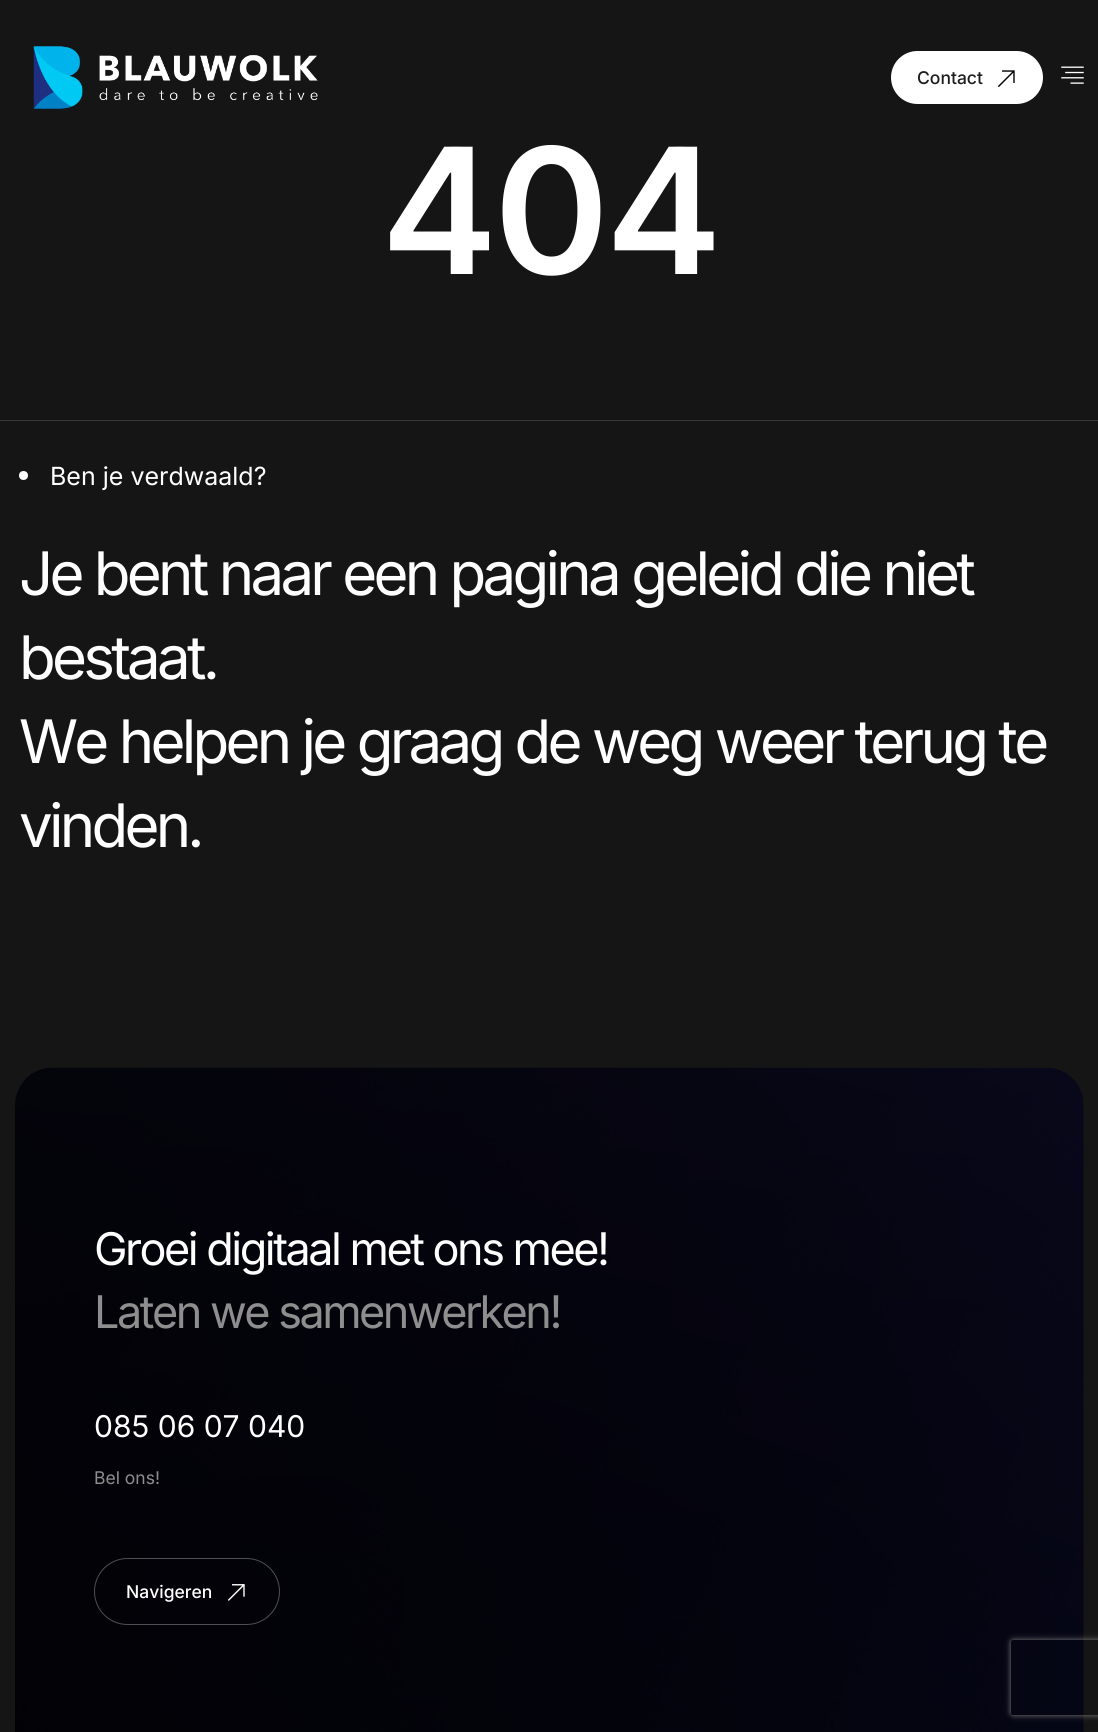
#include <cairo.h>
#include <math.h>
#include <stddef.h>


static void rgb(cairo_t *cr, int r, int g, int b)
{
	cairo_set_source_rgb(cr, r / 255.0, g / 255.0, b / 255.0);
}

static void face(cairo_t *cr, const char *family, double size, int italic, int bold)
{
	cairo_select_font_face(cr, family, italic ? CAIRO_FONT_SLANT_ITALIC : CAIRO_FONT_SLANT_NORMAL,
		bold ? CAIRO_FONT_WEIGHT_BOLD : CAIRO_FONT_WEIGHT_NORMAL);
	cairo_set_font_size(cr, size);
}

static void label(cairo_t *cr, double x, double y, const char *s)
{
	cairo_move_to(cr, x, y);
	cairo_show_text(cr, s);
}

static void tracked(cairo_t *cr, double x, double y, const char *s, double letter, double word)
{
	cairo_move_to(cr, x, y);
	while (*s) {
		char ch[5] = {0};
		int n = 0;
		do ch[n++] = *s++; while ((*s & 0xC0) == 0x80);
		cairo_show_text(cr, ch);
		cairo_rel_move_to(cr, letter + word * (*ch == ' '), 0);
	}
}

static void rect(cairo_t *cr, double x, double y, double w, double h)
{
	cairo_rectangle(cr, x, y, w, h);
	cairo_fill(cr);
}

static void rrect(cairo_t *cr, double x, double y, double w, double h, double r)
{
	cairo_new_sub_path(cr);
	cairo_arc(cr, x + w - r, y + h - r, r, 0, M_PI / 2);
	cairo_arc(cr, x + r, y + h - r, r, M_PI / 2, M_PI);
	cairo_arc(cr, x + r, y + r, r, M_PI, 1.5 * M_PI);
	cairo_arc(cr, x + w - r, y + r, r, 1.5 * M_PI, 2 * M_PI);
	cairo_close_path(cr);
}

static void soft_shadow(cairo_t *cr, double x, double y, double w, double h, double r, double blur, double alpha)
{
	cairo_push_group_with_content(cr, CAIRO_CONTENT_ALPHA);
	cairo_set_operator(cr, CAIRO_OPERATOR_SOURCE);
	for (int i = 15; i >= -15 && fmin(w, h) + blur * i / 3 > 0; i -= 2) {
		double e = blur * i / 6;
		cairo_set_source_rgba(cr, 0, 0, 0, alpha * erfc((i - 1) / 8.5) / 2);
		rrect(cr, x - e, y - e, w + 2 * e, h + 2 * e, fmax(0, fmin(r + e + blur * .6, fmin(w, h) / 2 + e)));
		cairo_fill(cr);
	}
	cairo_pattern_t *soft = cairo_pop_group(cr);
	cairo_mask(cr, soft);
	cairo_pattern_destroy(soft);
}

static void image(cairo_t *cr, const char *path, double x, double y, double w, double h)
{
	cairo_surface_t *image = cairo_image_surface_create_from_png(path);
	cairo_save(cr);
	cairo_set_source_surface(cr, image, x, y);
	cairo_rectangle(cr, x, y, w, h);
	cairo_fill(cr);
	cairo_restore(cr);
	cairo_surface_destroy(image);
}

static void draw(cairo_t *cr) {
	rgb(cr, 21, 21, 21);
	cairo_paint(cr);
	image(cr, "image0.png", 33, 46, 285, 63);
	rgb(cr, 255, 255, 255);
	rrect(cr, 891, 51, 152, 53, 26.5);
	cairo_fill(cr);
	face(cr, "Inter Medium", 17.5, 0, 0);
	rgb(cr, 29, 29, 29);
	label(cr, 917, 84, "Contact");
	image(cr, "image1.png", 997, 70, 18, 18);
	image(cr, "image2.png", 1061, 66, 23, 18);
	rgb(cr, 56, 56, 56);
	rect(cr, 0, 420, 1098, 1);
	face(cr, "Inter SemiBold", 175, 0, 0);
	rgb(cr, 255, 255, 255);
	tracked(cr, 381, 274, "404", -3.75, 0);
	cairo_new_path(cr);
	cairo_arc(cr, 23.5, 475.5, 4.5, 0, 2 * M_PI);
	cairo_fill(cr);
	face(cr, "Inter", 25, 0, 0);
	label(cr, 50, 485, "Ben je verdwaald?");
	face(cr, "Inter", 60, 0, 0);
	tracked(cr, 19, 595, "Je bent naar een pagina geleid die niet", -3.75, 0);
	tracked(cr, 19, 679, "bestaat.", -3.75, 0);
	tracked(cr, 19, 763, "We helpen je graag de weg weer terug te", -3.75, 0);
	tracked(cr, 19, 847, "vinden.", -3.75, 0);
	image(cr, "image3.png", 15, 1067, 1069, 665);
	face(cr, "Inter", 45, 0, 0);
	tracked(cr, 94, 1265, "Groei digitaal met ons mee!", -2.5, 0);
	rgb(cr, 142, 142, 142);
	tracked(cr, 94, 1328, "Laten we samenwerken!", -2.5, 0);
	face(cr, "Inter", 30, 0, 0);
	rgb(cr, 255, 255, 255);
	label(cr, 94, 1437, "085 06 07 040");
	face(cr, "Inter", 17.5, 0, 0);
	rgb(cr, 142, 142, 142);
	label(cr, 94, 1484, "Bel ons!");
	rrect(cr, 94.5, 1558.5, 185, 66, 33);
	rgb(cr, 78, 78, 82);
	cairo_set_line_width(cr, 1);
	cairo_stroke(cr);
	face(cr, "Inter Medium", 17.5, 0, 0);
	rgb(cr, 255, 255, 255);
	label(cr, 126, 1598, "Navigeren");
	image(cr, "image4.png", 227, 1584, 18, 17);
	cairo_save(cr);
	cairo_set_fill_rule(cr, CAIRO_FILL_RULE_EVEN_ODD);
	cairo_new_path(cr);
	cairo_move_to(cr, 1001, 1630);
	cairo_line_to(cr, 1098, 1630);
	cairo_line_to(cr, 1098, 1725);
	cairo_line_to(cr, 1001, 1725);
	cairo_close_path(cr);
	cairo_move_to(cr, 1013.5, 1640);
	cairo_line_to(cr, 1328.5, 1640);
	cairo_curve_to(cr, 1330, 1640, 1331, 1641, 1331, 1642.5);
	cairo_line_to(cr, 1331, 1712.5);
	cairo_curve_to(cr, 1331, 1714, 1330, 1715, 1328.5, 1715);
	cairo_line_to(cr, 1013.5, 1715);
	cairo_curve_to(cr, 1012, 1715, 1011, 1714, 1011, 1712.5);
	cairo_line_to(cr, 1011, 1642.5);
	cairo_curve_to(cr, 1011, 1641, 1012, 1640, 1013.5, 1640);
	cairo_close_path(cr);
	cairo_clip(cr);
	rgb(cr, 128, 128, 128);
	soft_shadow(cr, 1011, 1640, 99, 75, 2.5, 3, 1);
	cairo_restore(cr);
}

int main(void) {
	cairo_surface_t *surface = cairo_image_surface_create(CAIRO_FORMAT_RGB24, 1098, 1732);
	cairo_t *cr = cairo_create(surface);
	cairo_font_options_t *options = cairo_font_options_create();
	cairo_font_options_set_hint_metrics(options, CAIRO_HINT_METRICS_OFF);
	cairo_font_options_set_hint_style(options, CAIRO_HINT_STYLE_NONE);
	cairo_set_font_options(cr, options);
	cairo_set_miter_limit(cr, 4);
	draw(cr);
	cairo_surface_write_to_png(surface, "render.png");
	cairo_font_options_destroy(options);
	cairo_destroy(cr);
	cairo_surface_destroy(surface);
	return 0;
}
